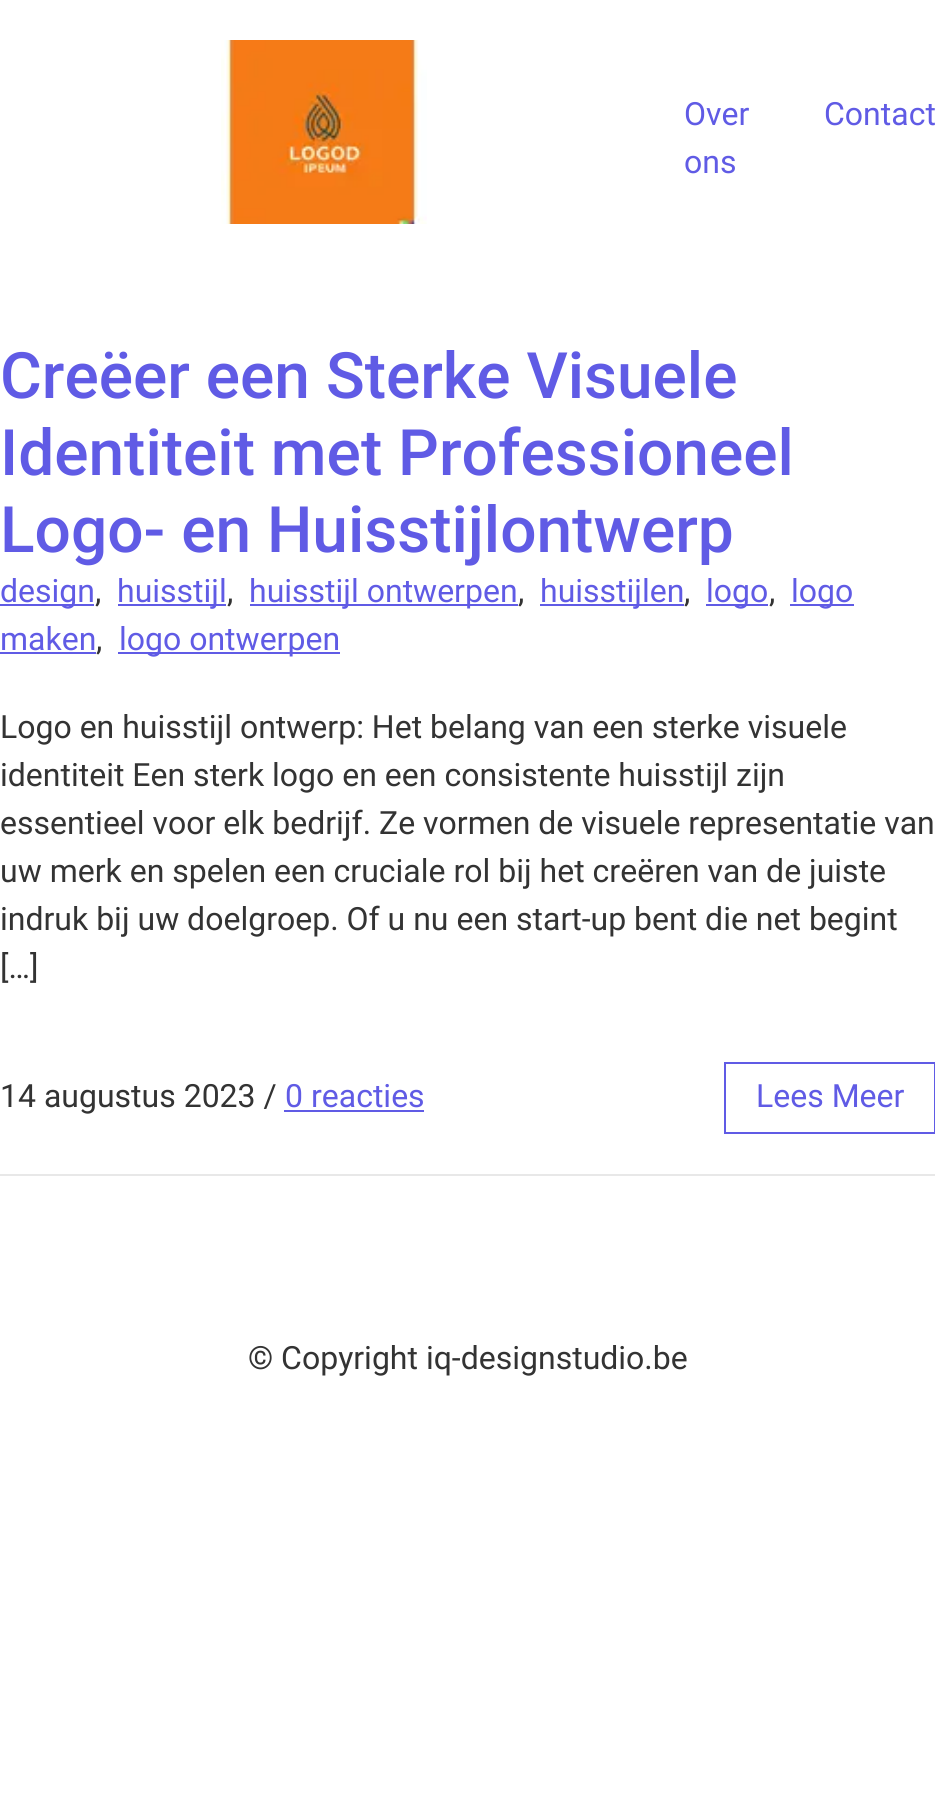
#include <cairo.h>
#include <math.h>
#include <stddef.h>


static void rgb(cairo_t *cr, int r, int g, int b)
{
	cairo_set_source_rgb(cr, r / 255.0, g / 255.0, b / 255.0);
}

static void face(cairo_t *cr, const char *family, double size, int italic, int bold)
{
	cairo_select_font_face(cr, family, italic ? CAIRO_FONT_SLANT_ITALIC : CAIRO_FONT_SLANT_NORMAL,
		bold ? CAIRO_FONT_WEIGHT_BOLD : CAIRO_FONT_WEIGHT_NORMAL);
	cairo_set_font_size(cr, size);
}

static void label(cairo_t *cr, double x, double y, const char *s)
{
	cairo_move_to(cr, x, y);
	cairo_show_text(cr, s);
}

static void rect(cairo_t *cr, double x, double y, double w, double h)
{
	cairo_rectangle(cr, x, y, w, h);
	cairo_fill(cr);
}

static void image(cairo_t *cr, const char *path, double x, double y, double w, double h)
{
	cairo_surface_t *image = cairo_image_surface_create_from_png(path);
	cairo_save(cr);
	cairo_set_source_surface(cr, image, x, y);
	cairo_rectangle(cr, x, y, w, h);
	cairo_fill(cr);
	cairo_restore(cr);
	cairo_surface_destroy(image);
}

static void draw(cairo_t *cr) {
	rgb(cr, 255, 255, 255);
	cairo_paint(cr);
	image(cr, "image0.png", 221, 40, 206, 184);
	face(cr, "Roboto", 32, 0, 0);
	rgb(cr, 96, 91, 229);
	label(cr, 684, 125, "Over");
	label(cr, 684, 173, "ons");
	label(cr, 824, 125, "Contact");
	face(cr, "Roboto Medium", 64, 0, 0);
	label(cr, 0, 398, "Creëer een Sterke Visuele");
	label(cr, 0, 475, "Identiteit met Professioneel");
	label(cr, 0, 552, "Logo- en Huisstijlontwerp");
	rect(cr, 0, 604, 94, 2);
	face(cr, "Roboto", 32, 0, 0);
	label(cr, 0, 602, "design");
	rgb(cr, 51, 51, 51);
	label(cr, 95, 602, ",");
	rgb(cr, 96, 91, 229);
	rect(cr, 118, 604, 108, 2);
	label(cr, 117, 602, "huisstijl");
	rgb(cr, 51, 51, 51);
	label(cr, 227, 602, ",");
	rgb(cr, 96, 91, 229);
	rect(cr, 250, 604, 268, 2);
	label(cr, 249, 602, "huisstijl ontwerpen");
	rgb(cr, 51, 51, 51);
	label(cr, 518, 602, ",");
	rgb(cr, 96, 91, 229);
	rect(cr, 540, 604, 144, 2);
	label(cr, 540, 602, "huisstijlen");
	rgb(cr, 51, 51, 51);
	label(cr, 684, 602, ",");
	rgb(cr, 96, 91, 229);
	rect(cr, 706, 604, 62, 2);
	label(cr, 706, 602, "logo");
	rgb(cr, 51, 51, 51);
	label(cr, 769, 602, ",");
	rgb(cr, 96, 91, 229);
	rect(cr, 790, 604, 64, 2);
	label(cr, 791, 602, "logo");
	label(cr, 0, 650, "maken");
	rect(cr, 0, 652, 96, 2);
	rgb(cr, 51, 51, 51);
	label(cr, 96, 650, ",");
	rgb(cr, 96, 91, 229);
	rect(cr, 118, 652, 222, 2);
	label(cr, 119, 650, "logo ontwerpen");
	rgb(cr, 51, 51, 51);
	label(cr, 0, 738, "Logo en huisstijl ontwerp: Het belang van een sterke visuele");
	label(cr, 0, 786, "identiteit Een sterk logo en een consistente huisstijl zijn");
	label(cr, 0, 834, "essentieel voor elk bedrijf. Ze vormen de visuele representatie van");
	label(cr, 0, 882, "uw merk en spelen een cruciale rol bij het creëren van de juiste");
	label(cr, 0, 930, "indruk bij uw doelgroep. Of u nu een start-up bent die net begint");
	label(cr, 0, 978, "[…]");
	rgb(cr, 232, 232, 232);
	rect(cr, 0, 1174, 935, 2);
	rgb(cr, 51, 51, 51);
	label(cr, 0, 1107, "14 augustus 2023 /");
	rgb(cr, 96, 91, 229);
	label(cr, 285, 1107, "0 reacties");
	rect(cr, 284, 1110, 140, 2);
	cairo_rectangle(cr, 725, 1063, 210, 70);
	cairo_stroke(cr);
	label(cr, 756, 1107, "Lees Meer");
	rgb(cr, 51, 51, 51);
	label(cr, 248, 1369, "© Copyright iq-designstudio.be");
}

int main(void) {
	cairo_surface_t *surface = cairo_image_surface_create(CAIRO_FORMAT_RGB24, 935, 1817);
	cairo_t *cr = cairo_create(surface);
	cairo_font_options_t *options = cairo_font_options_create();
	cairo_font_options_set_hint_metrics(options, CAIRO_HINT_METRICS_OFF);
	cairo_font_options_set_hint_style(options, CAIRO_HINT_STYLE_NONE);
	cairo_set_font_options(cr, options);
	cairo_set_miter_limit(cr, 4);
	draw(cr);
	cairo_surface_write_to_png(surface, "render.png");
	cairo_font_options_destroy(options);
	cairo_destroy(cr);
	cairo_surface_destroy(surface);
	return 0;
}
